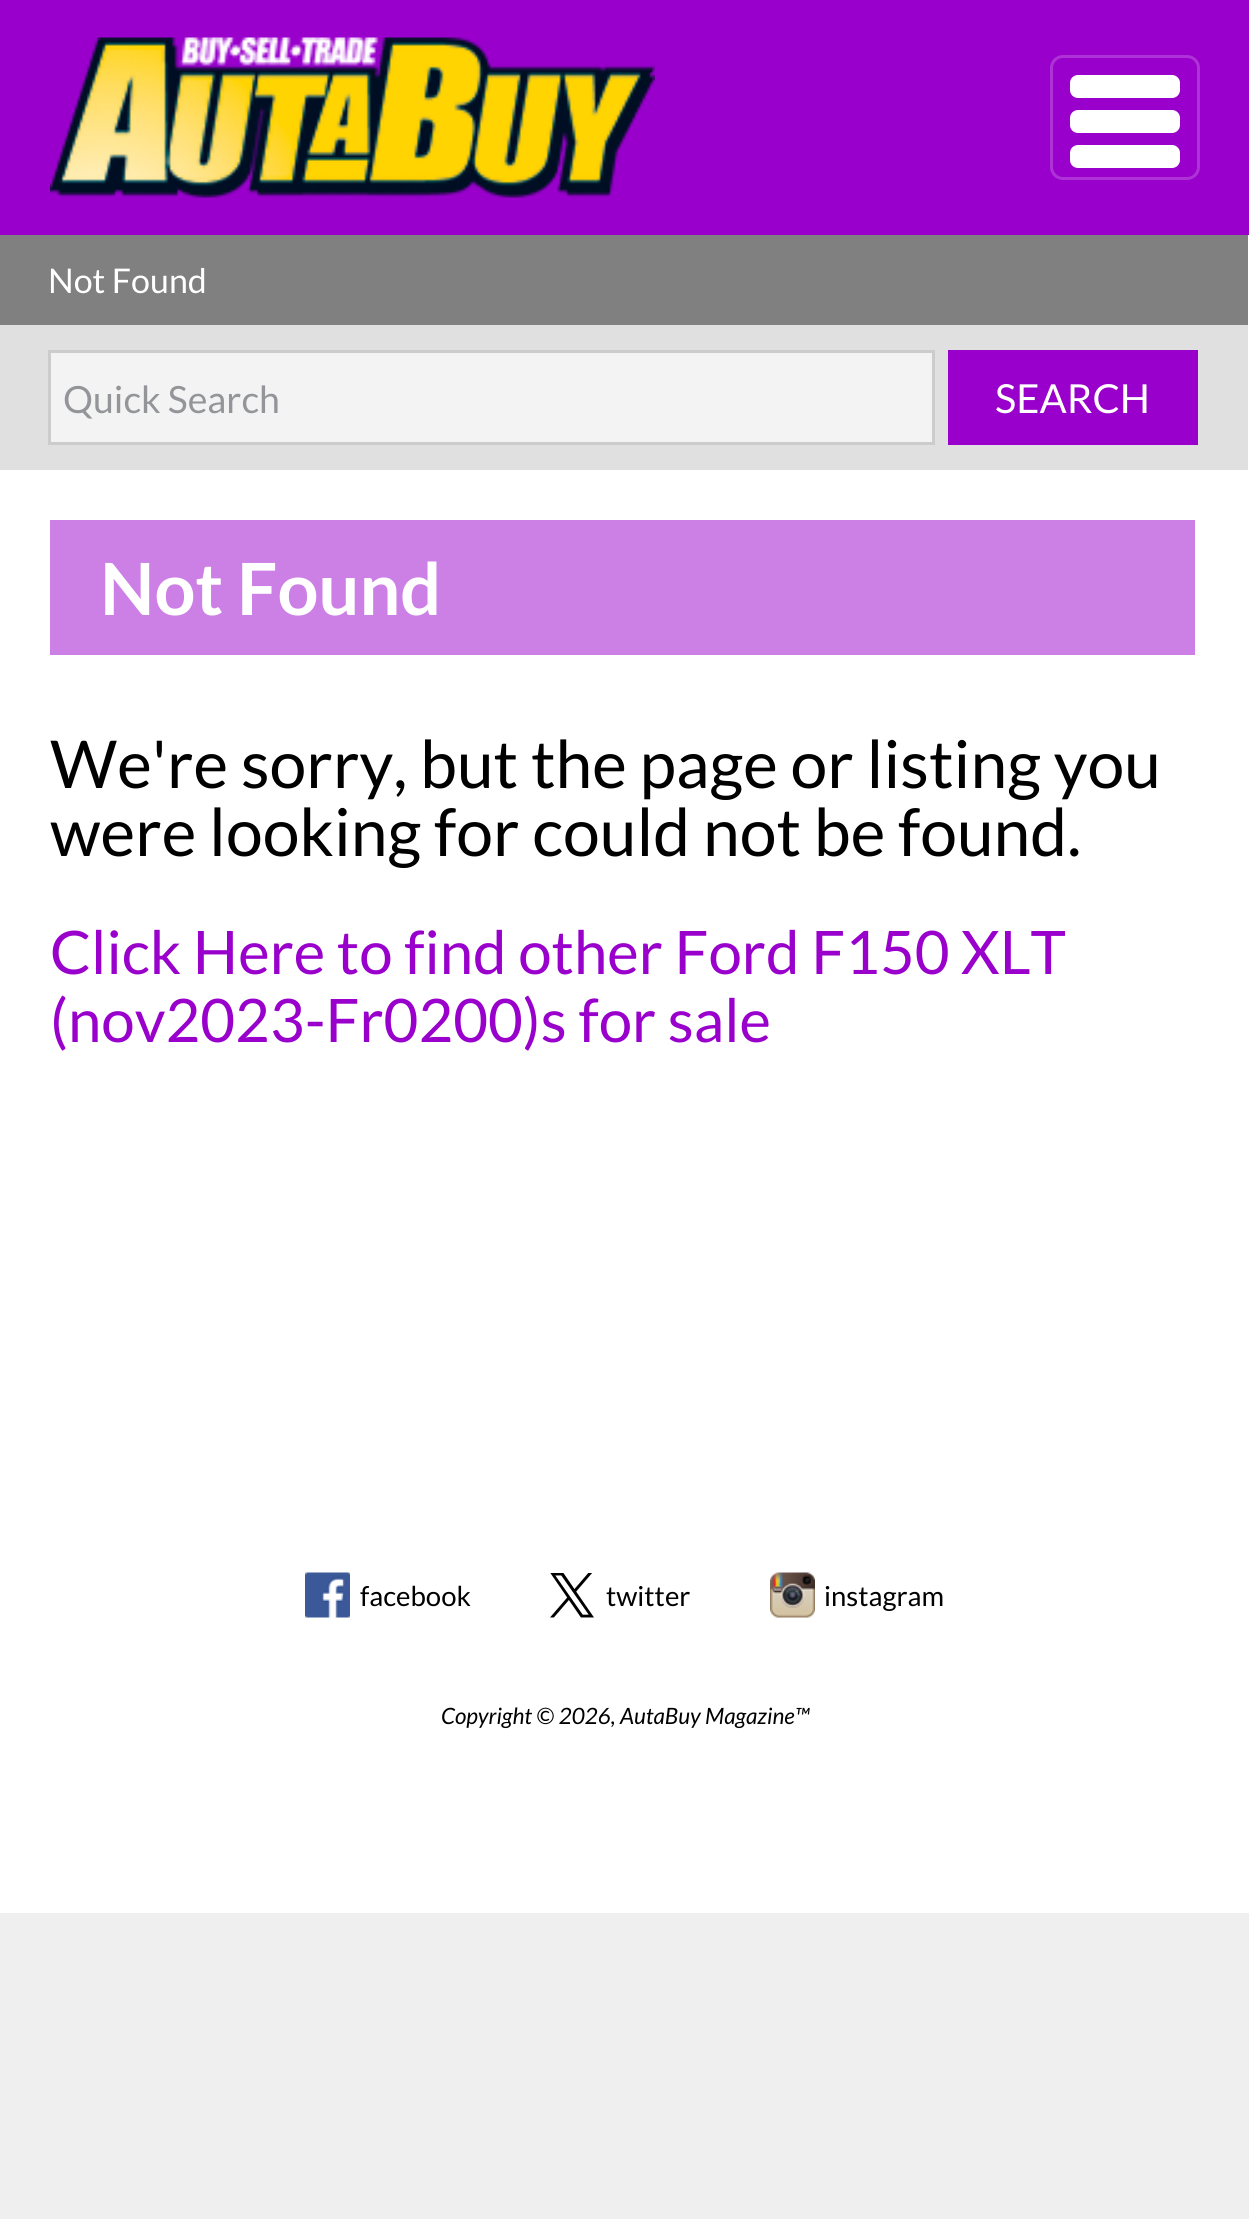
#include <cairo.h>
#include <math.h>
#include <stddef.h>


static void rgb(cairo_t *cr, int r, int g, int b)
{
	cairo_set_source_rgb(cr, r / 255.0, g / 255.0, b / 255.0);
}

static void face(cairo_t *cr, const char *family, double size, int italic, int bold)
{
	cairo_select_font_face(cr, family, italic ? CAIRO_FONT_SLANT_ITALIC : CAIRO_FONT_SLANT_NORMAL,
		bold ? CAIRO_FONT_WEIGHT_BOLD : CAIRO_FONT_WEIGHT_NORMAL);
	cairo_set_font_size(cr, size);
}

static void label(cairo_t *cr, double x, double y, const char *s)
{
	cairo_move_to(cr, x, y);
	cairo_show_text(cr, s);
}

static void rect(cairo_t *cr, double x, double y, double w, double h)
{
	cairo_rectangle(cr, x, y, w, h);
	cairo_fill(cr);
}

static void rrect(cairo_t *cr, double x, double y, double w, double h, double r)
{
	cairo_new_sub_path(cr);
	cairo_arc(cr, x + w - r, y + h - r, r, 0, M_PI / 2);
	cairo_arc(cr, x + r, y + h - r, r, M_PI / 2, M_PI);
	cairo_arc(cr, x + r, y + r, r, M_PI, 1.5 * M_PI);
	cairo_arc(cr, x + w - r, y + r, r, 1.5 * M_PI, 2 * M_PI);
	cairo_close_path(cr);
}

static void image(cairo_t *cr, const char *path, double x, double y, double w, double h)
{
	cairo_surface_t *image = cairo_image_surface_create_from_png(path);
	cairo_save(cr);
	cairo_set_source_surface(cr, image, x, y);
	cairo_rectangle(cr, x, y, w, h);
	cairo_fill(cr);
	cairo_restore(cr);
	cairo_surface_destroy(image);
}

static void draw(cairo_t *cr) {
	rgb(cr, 239, 239, 239);
	cairo_paint(cr);
	rgb(cr, 153, 0, 204);
	rect(cr, 0, 0, 1249, 235);
	image(cr, "image0.png", 50, 37, 605, 161);
	rrect(cr, 1051.5, 56.5, 147, 122, 11.5);
	rgb(cr, 173, 51, 214);
	cairo_set_line_width(cr, 3);
	cairo_stroke(cr);
	rgb(cr, 255, 255, 255);
	rrect(cr, 1070, 75, 110, 23, 8);
	cairo_fill(cr);
	rrect(cr, 1070, 110, 110, 23, 8);
	cairo_fill(cr);
	rrect(cr, 1070, 145, 110, 23, 8);
	cairo_fill(cr);
	rect(cr, 0, 235, 1249, 1678);
	rgb(cr, 128, 128, 128);
	rect(cr, 0, 235, 1248, 90);
	face(cr, "Lato", 34, 0, 0);
	rgb(cr, 255, 255, 255);
	label(cr, 48, 293, "Not Found");
	rgb(cr, 224, 224, 224);
	rect(cr, 0, 325, 1248, 145);
	rgb(cr, 243, 243, 243);
	cairo_rectangle(cr, 49.5, 351.5, 884, 92);
	cairo_fill_preserve(cr);
	rgb(cr, 204, 204, 204);
	cairo_stroke(cr);
	face(cr, "Lato", 37.5, 0, 0);
	rgb(cr, 147, 149, 152);
	label(cr, 63, 413, "Quick Search");
	rgb(cr, 153, 0, 204);
	rect(cr, 948, 350, 250, 95);
	face(cr, "Lato", 40, 0, 0);
	rgb(cr, 255, 255, 255);
	label(cr, 995, 413, "SEARCH");
	rgb(cr, 204, 127, 229);
	rect(cr, 50, 520, 1145, 135);
	face(cr, "Lato", 72, 0, 1);
	rgb(cr, 255, 255, 255);
	label(cr, 100, 615, "Not Found");
	face(cr, "Lato", 66, 0, 0);
	rgb(cr, 0, 0, 0);
	label(cr, 50, 788, "We're sorry, but the page or listing you");
	label(cr, 50, 856, "were looking for could not be found.");
	face(cr, "Lato", 60, 0, 0);
	rgb(cr, 153, 0, 204);
	label(cr, 50, 974, "Click Here to find other Ford F150 XLT");
	label(cr, 50, 1042, "(nov2023-Fr0200)s for sale");
	image(cr, "image1.png", 305, 1572, 45, 46);
	face(cr, "Lato", 27.5, 0, 0);
	rgb(cr, 0, 0, 0);
	label(cr, 360, 1606, "facebook");
	image(cr, "image2.png", 550, 1573, 44, 45);
	label(cr, 606, 1606, "twitter");
	image(cr, "image3.png", 770, 1572, 45, 46);
	label(cr, 824, 1606, "instagram");
	face(cr, "Lato", 22.5, 1, 0);
	label(cr, 441, 1724, "Copyright © 2026, AutaBuy Magazine™");
}

int main(void) {
	cairo_surface_t *surface = cairo_image_surface_create(CAIRO_FORMAT_RGB24, 1249, 2219);
	cairo_t *cr = cairo_create(surface);
	cairo_font_options_t *options = cairo_font_options_create();
	cairo_font_options_set_hint_metrics(options, CAIRO_HINT_METRICS_OFF);
	cairo_font_options_set_hint_style(options, CAIRO_HINT_STYLE_NONE);
	cairo_set_font_options(cr, options);
	cairo_set_miter_limit(cr, 4);
	draw(cr);
	cairo_surface_write_to_png(surface, "render.png");
	cairo_font_options_destroy(options);
	cairo_destroy(cr);
	cairo_surface_destroy(surface);
	return 0;
}
